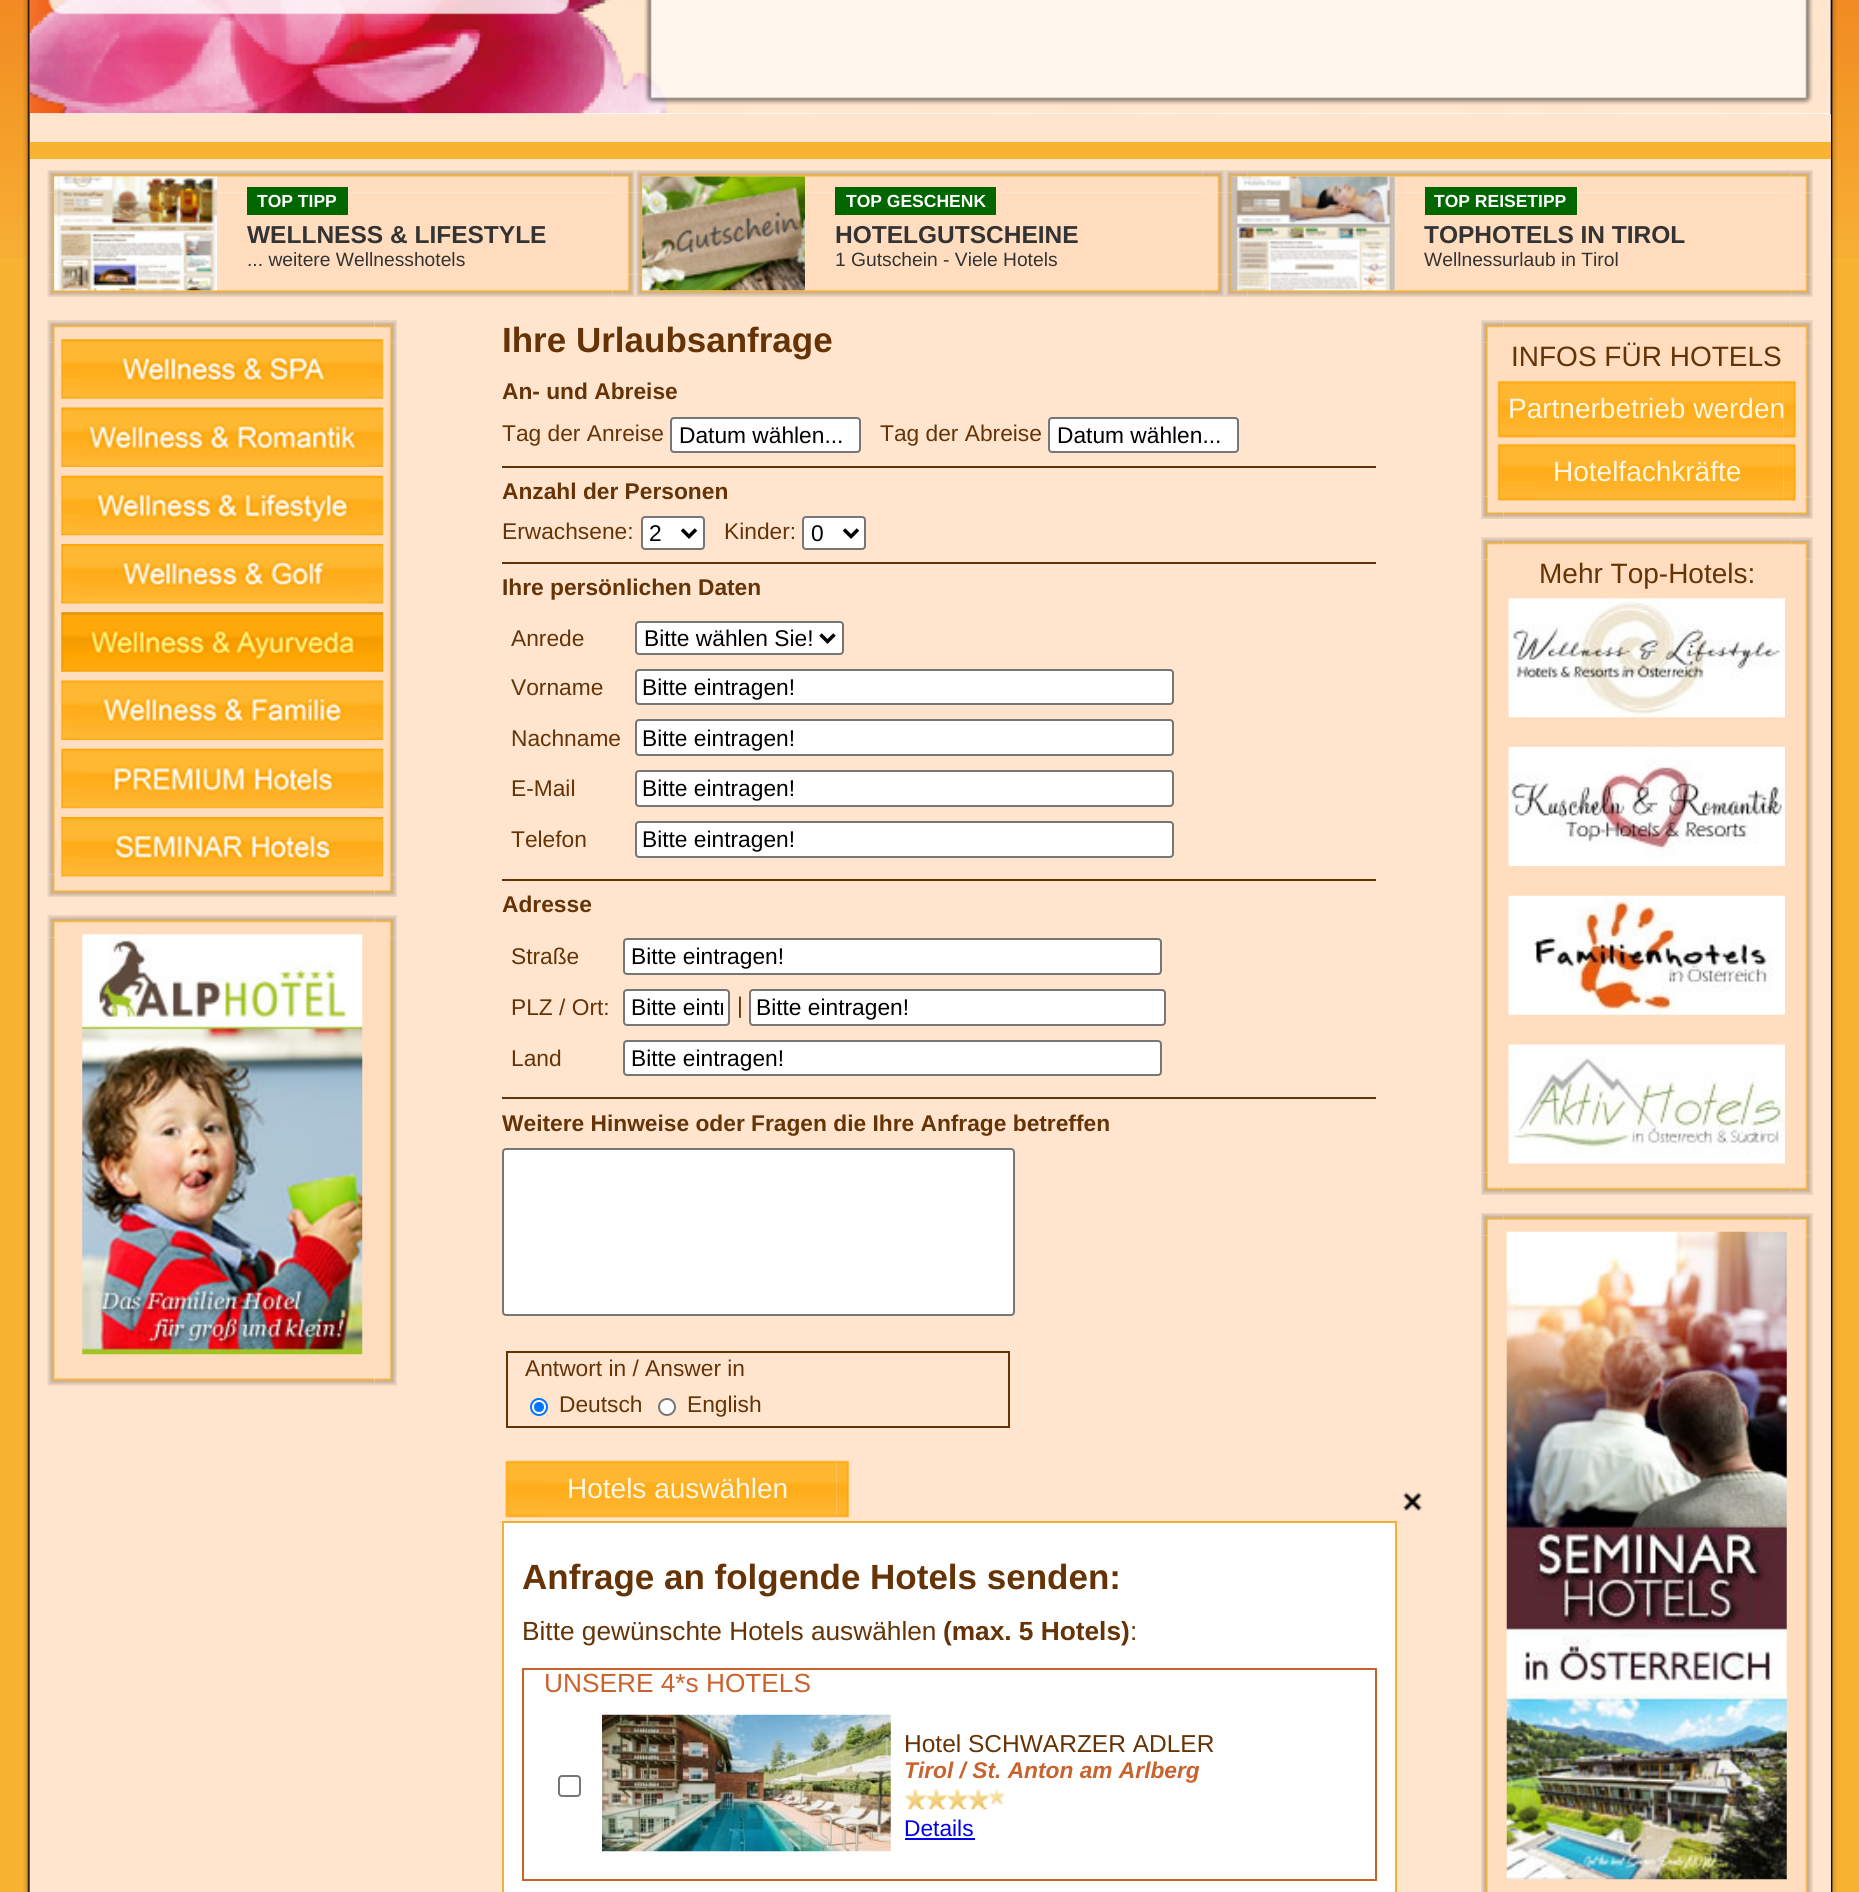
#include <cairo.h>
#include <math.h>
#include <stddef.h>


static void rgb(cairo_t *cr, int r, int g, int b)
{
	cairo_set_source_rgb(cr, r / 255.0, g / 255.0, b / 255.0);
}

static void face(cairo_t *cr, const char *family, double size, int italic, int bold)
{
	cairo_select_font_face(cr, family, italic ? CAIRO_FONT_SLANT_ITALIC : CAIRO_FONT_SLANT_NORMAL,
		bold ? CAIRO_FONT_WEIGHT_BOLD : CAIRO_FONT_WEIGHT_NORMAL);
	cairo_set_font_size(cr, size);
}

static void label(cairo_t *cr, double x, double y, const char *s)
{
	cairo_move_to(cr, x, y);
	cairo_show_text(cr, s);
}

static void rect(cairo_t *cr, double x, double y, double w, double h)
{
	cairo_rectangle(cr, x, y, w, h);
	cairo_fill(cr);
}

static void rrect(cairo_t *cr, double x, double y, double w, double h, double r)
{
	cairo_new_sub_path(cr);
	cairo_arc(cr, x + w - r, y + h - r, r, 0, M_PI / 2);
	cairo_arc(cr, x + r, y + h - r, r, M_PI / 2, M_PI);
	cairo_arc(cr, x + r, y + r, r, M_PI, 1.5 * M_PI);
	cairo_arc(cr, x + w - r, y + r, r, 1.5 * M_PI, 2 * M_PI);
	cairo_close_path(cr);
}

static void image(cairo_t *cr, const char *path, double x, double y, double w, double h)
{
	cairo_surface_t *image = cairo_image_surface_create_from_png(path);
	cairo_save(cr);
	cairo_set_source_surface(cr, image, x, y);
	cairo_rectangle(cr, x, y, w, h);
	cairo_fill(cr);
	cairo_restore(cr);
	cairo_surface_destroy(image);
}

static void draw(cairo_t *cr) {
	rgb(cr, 248, 179, 51);
	cairo_paint(cr);
	image(cr, "image0.png", 0, 0, 1859, 258);
	image(cr, "image1.png", 23, 0, 31, 1892);
	rgb(cr, 255, 255, 255);
	rect(cr, 54, 113, 1752, 1);
	image(cr, "image2.png", 1806, 0, 31, 1892);
	image(cr, "image3.png", 29, 0, 1802, 114);
	image(cr, "image4.png", 644, 0, 1169, 105);
	rgb(cr, 255, 229, 206);
	rect(cr, 30, 114, 1801, 28);
	rgb(cr, 248, 179, 51);
	rect(cr, 30, 142, 1801, 17);
	rgb(cr, 255, 229, 206);
	rect(cr, 30, 159, 1801, 1733);
	image(cr, "image5.png", 47, 170, 23, 23);
	image(cr, "image7.png", 612, 170, 23, 23);
	image(cr, "image6.png", 70, 170, 543, 22);
	image(cr, "image11.png", 47, 274, 23, 23);
	image(cr, "image8.png", 47, 192, 8, 83);
	image(cr, "image13.png", 612, 274, 23, 23);
	image(cr, "image9.png", 612, 192, 23, 83);
	rgb(cr, 255, 221, 190);
	rect(cr, 217, 193, 396, 82);
	image(cr, "image12.png", 70, 275, 543, 22);
	image(cr, "image10.png", 54, 176, 163, 115);
	rgb(cr, 0, 102, 0);
	rect(cr, 247, 187, 101, 28);
	face(cr, "Liberation Sans", 17.5, 0, 1);
	rgb(cr, 255, 255, 255);
	label(cr, 257, 207, "TOP TIPP");
	face(cr, "Liberation Sans", 24.5, 0, 1);
	rgb(cr, 51, 51, 51);
	label(cr, 247, 243, "WELLNESS & LIFESTYLE");
	face(cr, "Liberation Sans", 19.25, 0, 0);
	label(cr, 247, 266, "... weitere Wellnesshotels");
	image(cr, "image14.png", 635, 170, 23, 23);
	image(cr, "image16.png", 1202, 170, 23, 23);
	image(cr, "image15.png", 658, 170, 545, 22);
	image(cr, "image20.png", 635, 274, 23, 23);
	image(cr, "image17.png", 635, 192, 8, 83);
	rgb(cr, 255, 221, 190);
	rect(cr, 805, 193, 397, 82);
	image(cr, "image22.png", 1202, 274, 23, 23);
	image(cr, "image18.png", 1202, 192, 23, 83);
	image(cr, "image21.png", 658, 275, 544, 22);
	image(cr, "image19.png", 642, 176, 163, 115);
	rgb(cr, 0, 102, 0);
	rect(cr, 835, 187, 161, 28);
	face(cr, "Liberation Sans", 17.5, 0, 1);
	rgb(cr, 255, 255, 255);
	label(cr, 846, 207, "TOP GESCHENK");
	face(cr, "Liberation Sans", 24.5, 0, 1);
	rgb(cr, 51, 51, 51);
	label(cr, 835, 243, "HOTELGUTSCHEINE");
	face(cr, "Liberation Sans", 19.25, 0, 0);
	label(cr, 835, 266, "1 Gutschein - Viele Hotels");
	image(cr, "image23.png", 1225, 170, 23, 23);
	image(cr, "image16.png", 1790, 170, 23, 23);
	image(cr, "image24.png", 1247, 170, 544, 22);
	image(cr, "image27.png", 1225, 274, 23, 23);
	image(cr, "image25.png", 1225, 192, 7, 83);
	rgb(cr, 255, 221, 190);
	rect(cr, 1394, 193, 396, 82);
	image(cr, "image22.png", 1790, 274, 23, 23);
	image(cr, "image18.png", 1790, 192, 23, 83);
	image(cr, "image28.png", 1248, 275, 542, 22);
	image(cr, "image26.png", 1232, 176, 163, 115);
	rgb(cr, 0, 102, 0);
	rect(cr, 1425, 187, 152, 28);
	face(cr, "Liberation Sans", 17.5, 0, 1);
	rgb(cr, 255, 255, 255);
	label(cr, 1434, 207, "TOP REISETIPP");
	face(cr, "Liberation Sans", 24.5, 0, 1);
	rgb(cr, 51, 51, 51);
	label(cr, 1424, 243, "TOPHOTELS IN TIROL");
	face(cr, "Liberation Sans", 19.25, 0, 0);
	label(cr, 1424, 266, "Wellnessurlaub in Tirol");
	image(cr, "image29.png", 47, 320, 23, 23);
	image(cr, "image31.png", 374, 320, 23, 23);
	image(cr, "image30.png", 70, 320, 305, 20);
	image(cr, "image42.png", 47, 874, 23, 23);
	image(cr, "image32.png", 47, 343, 23, 532);
	image(cr, "image44.png", 374, 874, 23, 23);
	image(cr, "image41.png", 375, 343, 22, 532);
	rgb(cr, 255, 221, 190);
	rect(cr, 70, 398, 305, 419);
	image(cr, "image33.png", 61, 339, 323, 60);
	image(cr, "image34.png", 61, 407, 323, 60);
	image(cr, "image35.png", 61, 475, 323, 61);
	image(cr, "image36.png", 61, 544, 323, 60);
	image(cr, "image37.png", 61, 612, 323, 60);
	image(cr, "image38.png", 61, 680, 323, 60);
	image(cr, "image39.png", 61, 748, 323, 61);
	image(cr, "image43.png", 70, 876, 305, 21);
	image(cr, "image40.png", 61, 817, 323, 60);
	image(cr, "image29.png", 47, 915, 23, 23);
	image(cr, "image31.png", 374, 915, 23, 23);
	image(cr, "image45.png", 70, 915, 305, 23);
	image(cr, "image46.png", 47, 938, 23, 425);
	rect(cr, 70, 938, 305, 425);
	image(cr, "image47.png", 82, 934, 281, 421);
	image(cr, "image48.png", 375, 938, 22, 425);
	image(cr, "image49.png", 47, 1363, 23, 23);
	image(cr, "image51.png", 374, 1363, 23, 23);
	image(cr, "image50.png", 70, 1363, 305, 23);
	face(cr, "Liberation Sans", 35, 0, 1);
	rgb(cr, 101, 51, 6);
	label(cr, 502, 352, "Ihre Urlaubsanfrage");
	face(cr, "Liberation Sans", 22.75, 0, 1);
	label(cr, 502, 399, "An- und Abreise");
	face(cr, "Liberation Sans", 22.75, 0, 0);
	label(cr, 502, 441, "Tag der Anreise");
	rgb(cr, 255, 255, 255);
	rrect(cr, 671, 418, 189, 34, 3);
	cairo_fill_preserve(cr);
	rgb(cr, 118, 118, 118);
	cairo_stroke(cr);
	rgb(cr, 0, 0, 0);
	label(cr, 679, 443, "Datum wählen...");
	rgb(cr, 101, 51, 6);
	label(cr, 880, 441, "Tag der Abreise");
	rgb(cr, 255, 255, 255);
	rrect(cr, 1049, 418, 189, 34, 3);
	cairo_fill_preserve(cr);
	rgb(cr, 118, 118, 118);
	cairo_stroke(cr);
	rgb(cr, 0, 0, 0);
	label(cr, 1057, 443, "Datum wählen...");
	rgb(cr, 101, 51, 6);
	rect(cr, 502, 466, 874, 2);
	face(cr, "Liberation Sans", 22.75, 0, 1);
	label(cr, 502, 499, "Anzahl der Personen");
	face(cr, "Liberation Sans", 22.75, 0, 0);
	label(cr, 502, 539, "Erwachsene:");
	rgb(cr, 255, 255, 255);
	rrect(cr, 642, 517, 62, 32, 3);
	cairo_fill_preserve(cr);
	rgb(cr, 118, 118, 118);
	cairo_stroke(cr);
	cairo_new_path(cr);
	cairo_move_to(cr, 682, 529.5);
	cairo_line_to(cr, 689, 536.5);
	cairo_line_to(cr, 696, 529.5);
	rgb(cr, 0, 0, 0);
	cairo_set_line_width(cr, 3.5);
	cairo_stroke(cr);
	label(cr, 649, 541, "2");
	rgb(cr, 101, 51, 6);
	label(cr, 724, 539, "Kinder:");
	rgb(cr, 255, 255, 255);
	rrect(cr, 803, 517, 62, 32, 3);
	cairo_fill_preserve(cr);
	rgb(cr, 118, 118, 118);
	cairo_set_line_width(cr, 2);
	cairo_stroke(cr);
	cairo_new_path(cr);
	cairo_move_to(cr, 844, 529.5);
	cairo_line_to(cr, 851, 536.5);
	cairo_line_to(cr, 858, 529.5);
	rgb(cr, 0, 0, 0);
	cairo_set_line_width(cr, 3.5);
	cairo_stroke(cr);
	label(cr, 811, 541, "0");
	rgb(cr, 101, 51, 6);
	rect(cr, 502, 562, 874, 2);
	face(cr, "Liberation Sans", 22.75, 0, 1);
	label(cr, 502, 595, "Ihre persönlichen Daten");
	face(cr, "Liberation Sans", 22.75, 0, 0);
	label(cr, 511, 646, "Anrede");
	rgb(cr, 255, 255, 255);
	rrect(cr, 636, 622, 207, 32, 3);
	cairo_fill_preserve(cr);
	rgb(cr, 118, 118, 118);
	cairo_set_line_width(cr, 2);
	cairo_stroke(cr);
	cairo_new_path(cr);
	cairo_move_to(cr, 820.5, 634.5);
	cairo_line_to(cr, 827.5, 641.5);
	cairo_line_to(cr, 834.5, 634.5);
	rgb(cr, 0, 0, 0);
	cairo_set_line_width(cr, 3.5);
	cairo_stroke(cr);
	label(cr, 644, 646, "Bitte wählen Sie!");
	rgb(cr, 101, 51, 6);
	label(cr, 511, 695, "Vorname");
	rgb(cr, 255, 255, 255);
	rrect(cr, 636, 670, 537, 34, 3);
	cairo_fill_preserve(cr);
	rgb(cr, 118, 118, 118);
	cairo_set_line_width(cr, 2);
	cairo_stroke(cr);
	rgb(cr, 0, 0, 0);
	label(cr, 642, 695, "Bitte eintragen!");
	rgb(cr, 101, 51, 6);
	label(cr, 511, 746, "Nachname");
	rgb(cr, 255, 255, 255);
	rrect(cr, 636, 720, 537, 35, 3);
	cairo_fill_preserve(cr);
	rgb(cr, 118, 118, 118);
	cairo_stroke(cr);
	rgb(cr, 0, 0, 0);
	label(cr, 642, 746, "Bitte eintragen!");
	rgb(cr, 101, 51, 6);
	label(cr, 511, 796, "E-Mail");
	rgb(cr, 255, 255, 255);
	rrect(cr, 636, 771, 537, 35, 3);
	cairo_fill_preserve(cr);
	rgb(cr, 118, 118, 118);
	cairo_stroke(cr);
	rgb(cr, 0, 0, 0);
	label(cr, 642, 796, "Bitte eintragen!");
	rgb(cr, 101, 51, 6);
	label(cr, 511, 847, "Telefon");
	rgb(cr, 255, 255, 255);
	rrect(cr, 636, 822, 537, 35, 3);
	cairo_fill_preserve(cr);
	rgb(cr, 118, 118, 118);
	cairo_stroke(cr);
	rgb(cr, 0, 0, 0);
	label(cr, 642, 847, "Bitte eintragen!");
	rgb(cr, 101, 51, 6);
	rect(cr, 502, 879, 874, 2);
	face(cr, "Liberation Sans", 22.75, 0, 1);
	label(cr, 502, 912, "Adresse");
	face(cr, "Liberation Sans", 22.75, 0, 0);
	label(cr, 511, 964, "Straße");
	rgb(cr, 255, 255, 255);
	rrect(cr, 624, 939, 537, 35, 3);
	cairo_fill_preserve(cr);
	rgb(cr, 118, 118, 118);
	cairo_stroke(cr);
	rgb(cr, 0, 0, 0);
	label(cr, 631, 964, "Bitte eintragen!");
	rgb(cr, 101, 51, 6);
	label(cr, 511, 1015, "PLZ / Ort:");
	rgb(cr, 255, 255, 255);
	rrect(cr, 624, 990, 105, 35, 3);
	cairo_fill_preserve(cr);
	rgb(cr, 118, 118, 118);
	cairo_stroke(cr);
	cairo_save(cr);
	cairo_rectangle(cr, 630, 994, 93, 26);
	cairo_clip(cr);
	rgb(cr, 0, 0, 0);
	label(cr, 631, 1015, "Bitte eintr");
	cairo_restore(cr);
	rgb(cr, 101, 51, 6);
	label(cr, 737, 1013, "|");
	rgb(cr, 255, 255, 255);
	rrect(cr, 750, 990, 415, 35, 3);
	cairo_fill_preserve(cr);
	rgb(cr, 118, 118, 118);
	cairo_stroke(cr);
	rgb(cr, 0, 0, 0);
	label(cr, 756, 1015, "Bitte eintragen!");
	rgb(cr, 101, 51, 6);
	label(cr, 511, 1066, "Land");
	rgb(cr, 255, 255, 255);
	rrect(cr, 624, 1041, 537, 34, 3);
	cairo_fill_preserve(cr);
	rgb(cr, 118, 118, 118);
	cairo_stroke(cr);
	rgb(cr, 0, 0, 0);
	label(cr, 631, 1066, "Bitte eintragen!");
	rgb(cr, 101, 51, 6);
	rect(cr, 502, 1097, 874, 2);
	face(cr, "Liberation Sans", 22.75, 0, 1);
	label(cr, 502, 1131, "Weitere Hinweise oder Fragen die Ihre Anfrage betreffen");
	rgb(cr, 255, 255, 255);
	rrect(cr, 503, 1149, 511, 166, 3);
	cairo_fill_preserve(cr);
	rgb(cr, 118, 118, 118);
	cairo_stroke(cr);
	cairo_rectangle(cr, 507, 1352, 502, 75);
	rgb(cr, 101, 51, 6);
	cairo_stroke(cr);
	face(cr, "Liberation Sans", 22.75, 0, 0);
	label(cr, 525, 1376, "Antwort in / Answer in");
	rgb(cr, 255, 255, 255);
	cairo_new_path(cr);
	cairo_arc(cr, 539, 1407, 8, 0, 2 * M_PI);
	cairo_fill_preserve(cr);
	rgb(cr, 0, 117, 255);
	cairo_stroke(cr);
	cairo_arc(cr, 539, 1407, 5, 0, 2 * M_PI);
	cairo_fill(cr);
	rgb(cr, 101, 51, 6);
	label(cr, 559, 1412, "Deutsch");
	rgb(cr, 255, 255, 255);
	cairo_new_path(cr);
	cairo_arc(cr, 667, 1407, 8, 0, 2 * M_PI);
	cairo_fill_preserve(cr);
	rgb(cr, 118, 118, 118);
	cairo_stroke(cr);
	rgb(cr, 101, 51, 6);
	label(cr, 687, 1412, "English");
	image(cr, "image52.png", 505, 1460, 332, 58);
	image(cr, "image53.png", 836, 1460, 14, 58);
	face(cr, "Liberation Sans", 28, 0, 0);
	rgb(cr, 254, 247, 229);
	label(cr, 567, 1498, "Hotels auswählen");
	rgb(cr, 255, 255, 255);
	cairo_rectangle(cr, 503, 1522, 893, 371);
	cairo_fill_preserve(cr);
	rgb(cr, 241, 177, 54);
	cairo_stroke(cr);
	image(cr, "image54.png", 1403, 1492, 19, 19);
	face(cr, "Liberation Sans", 35, 0, 1);
	rgb(cr, 101, 51, 6);
	label(cr, 522, 1589, "Anfrage an folgende Hotels senden:");
	face(cr, "Liberation Sans", 26.25, 0, 0);
	label(cr, 522, 1640, "Bitte gewünschte Hotels auswählen");
	face(cr, "Liberation Sans", 26.25, 0, 1);
	label(cr, 943, 1640, "(max. 5 Hotels)");
	face(cr, "Liberation Sans", 26.25, 0, 0);
	label(cr, 1130, 1640, ":");
	cairo_rectangle(cr, 523, 1669, 853, 211);
	rgb(cr, 202, 98, 45);
	cairo_stroke(cr);
	label(cr, 544, 1692, "UNSERE 4*s HOTELS");
	rrect(cr, 559, 1776, 21, 20, 3);
	rgb(cr, 118, 118, 118);
	cairo_stroke(cr);
	image(cr, "image55.png", 602, 1714, 289, 138);
	face(cr, "Liberation Sans", 24.5, 0, 0);
	rgb(cr, 101, 51, 6);
	label(cr, 904, 1752, "Hotel SCHWARZER ADLER");
	face(cr, "Liberation Sans", 22.75, 1, 1);
	rgb(cr, 202, 98, 45);
	label(cr, 904, 1778, "Tirol / St. Anton am Arlberg");
	image(cr, "image56.png", 904, 1788, 22, 22);
	image(cr, "image57.png", 926, 1788, 21, 22);
	image(cr, "image57.png", 947, 1788, 21, 22);
	image(cr, "image57.png", 968, 1788, 21, 22);
	image(cr, "image58.png", 988, 1788, 17, 17);
	face(cr, "Liberation Sans", 22.75, 0, 0);
	rgb(cr, 0, 0, 238);
	label(cr, 904, 1836, "Details");
	rect(cr, 905, 1838, 70, 2);
	image(cr, "image59.png", 1481, 320, 23, 23);
	image(cr, "image60.png", 1503, 320, 287, 23);
	image(cr, "image61.png", 1790, 320, 23, 23);
	image(cr, "image68.png", 1481, 496, 23, 23);
	image(cr, "image62.png", 1481, 343, 22, 154);
	rgb(cr, 255, 221, 190);
	rect(cr, 1503, 343, 287, 154);
	face(cr, "Liberation Sans", 28, 0, 0);
	rgb(cr, 101, 51, 6);
	label(cr, 1511, 366, "INFOS FÜR HOTELS");
	image(cr, "image63.png", 1497, 380, 287, 58);
	image(cr, "image70.png", 1790, 496, 23, 23);
	image(cr, "image67.png", 1790, 343, 23, 154);
	image(cr, "image64.png", 1783, 380, 13, 58);
	rgb(cr, 254, 247, 229);
	label(cr, 1508, 418, "Partnerbetrieb werden");
	image(cr, "image69.png", 1503, 497, 288, 22);
	image(cr, "image65.png", 1497, 443, 287, 58);
	image(cr, "image66.png", 1783, 443, 13, 58);
	label(cr, 1553, 481, "Hotelfachkräfte");
	image(cr, "image59.png", 1481, 537, 23, 23);
	image(cr, "image71.png", 1503, 537, 287, 23);
	image(cr, "image61.png", 1790, 537, 23, 23);
	image(cr, "image72.png", 1481, 560, 22, 612);
	image(cr, "image78.png", 1481, 1172, 23, 23);
	rgb(cr, 255, 221, 190);
	rect(cr, 1503, 560, 287, 613);
	image(cr, "image73.png", 1790, 560, 23, 612);
	rgb(cr, 101, 51, 6);
	label(cr, 1539, 583, "Mehr Top-Hotels:");
	image(cr, "image74.png", 1508, 598, 277, 120);
	image(cr, "image75.png", 1508, 747, 277, 119);
	image(cr, "image76.png", 1508, 895, 277, 120);
	image(cr, "image77.png", 1508, 1044, 277, 120);
	image(cr, "image79.png", 1503, 1173, 287, 22);
	image(cr, "image80.png", 1790, 1172, 23, 23);
	image(cr, "image81.png", 1481, 1213, 23, 23);
	image(cr, "image16.png", 1790, 1213, 23, 23);
	image(cr, "image82.png", 1503, 1213, 288, 22);
	image(cr, "image83.png", 1481, 1235, 22, 653);
	rgb(cr, 255, 221, 190);
	rect(cr, 1503, 1236, 287, 656);
	image(cr, "image84.png", 1506, 1231, 281, 649);
	image(cr, "image85.png", 1790, 1235, 23, 653);
	image(cr, "image86.png", 1481, 1888, 22, 4);
	image(cr, "image87.png", 1790, 1888, 23, 4);
}

int main(void) {
	cairo_surface_t *surface = cairo_image_surface_create(CAIRO_FORMAT_RGB24, 1859, 1892);
	cairo_t *cr = cairo_create(surface);
	cairo_font_options_t *options = cairo_font_options_create();
	cairo_font_options_set_hint_metrics(options, CAIRO_HINT_METRICS_OFF);
	cairo_font_options_set_hint_style(options, CAIRO_HINT_STYLE_NONE);
	cairo_set_font_options(cr, options);
	cairo_set_miter_limit(cr, 4);
	draw(cr);
	cairo_surface_write_to_png(surface, "render.png");
	cairo_font_options_destroy(options);
	cairo_destroy(cr);
	cairo_surface_destroy(surface);
	return 0;
}
